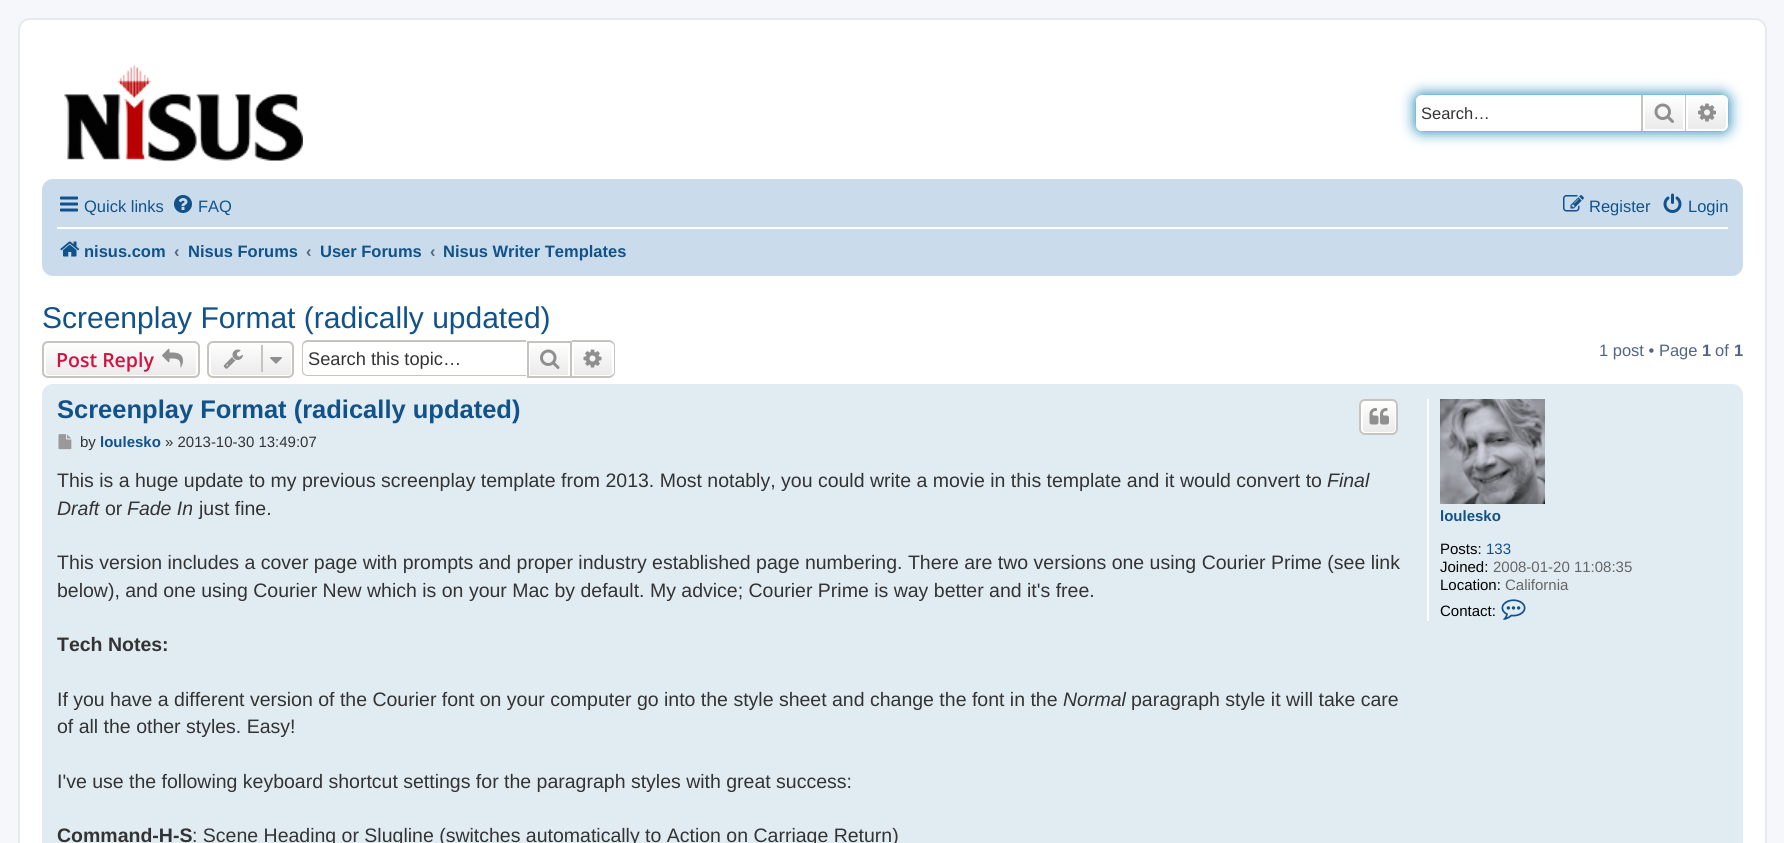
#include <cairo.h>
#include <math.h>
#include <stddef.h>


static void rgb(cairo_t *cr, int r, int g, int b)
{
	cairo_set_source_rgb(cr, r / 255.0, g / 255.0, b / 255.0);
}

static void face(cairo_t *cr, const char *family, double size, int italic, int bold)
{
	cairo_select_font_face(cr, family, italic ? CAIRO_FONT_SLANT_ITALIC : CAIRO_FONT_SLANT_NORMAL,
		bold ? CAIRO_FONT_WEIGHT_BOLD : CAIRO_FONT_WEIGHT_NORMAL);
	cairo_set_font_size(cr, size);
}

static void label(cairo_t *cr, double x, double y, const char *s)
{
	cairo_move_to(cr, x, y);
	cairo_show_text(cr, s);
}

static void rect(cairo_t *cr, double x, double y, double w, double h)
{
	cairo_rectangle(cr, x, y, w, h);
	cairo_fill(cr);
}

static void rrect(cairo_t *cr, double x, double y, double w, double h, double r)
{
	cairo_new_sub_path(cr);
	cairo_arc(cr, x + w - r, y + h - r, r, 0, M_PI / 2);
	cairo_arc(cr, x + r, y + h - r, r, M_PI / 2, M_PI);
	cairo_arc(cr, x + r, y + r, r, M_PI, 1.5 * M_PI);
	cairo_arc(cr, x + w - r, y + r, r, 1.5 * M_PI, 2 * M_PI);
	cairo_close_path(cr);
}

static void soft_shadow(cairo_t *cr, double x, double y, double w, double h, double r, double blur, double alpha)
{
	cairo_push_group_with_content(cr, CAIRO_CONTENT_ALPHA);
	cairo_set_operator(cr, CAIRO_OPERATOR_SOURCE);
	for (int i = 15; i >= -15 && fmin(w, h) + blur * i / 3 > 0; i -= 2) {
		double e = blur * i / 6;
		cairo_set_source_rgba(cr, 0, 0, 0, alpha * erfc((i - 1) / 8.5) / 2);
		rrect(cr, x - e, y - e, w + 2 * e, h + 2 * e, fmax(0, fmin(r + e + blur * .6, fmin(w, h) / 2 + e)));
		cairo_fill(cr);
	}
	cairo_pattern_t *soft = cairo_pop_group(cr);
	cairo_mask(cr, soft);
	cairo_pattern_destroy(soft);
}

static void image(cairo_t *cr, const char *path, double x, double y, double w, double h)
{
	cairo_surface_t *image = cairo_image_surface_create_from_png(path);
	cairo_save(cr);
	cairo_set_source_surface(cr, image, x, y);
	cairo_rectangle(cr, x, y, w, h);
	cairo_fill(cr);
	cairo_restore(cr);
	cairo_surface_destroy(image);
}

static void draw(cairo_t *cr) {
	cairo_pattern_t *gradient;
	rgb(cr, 245, 247, 250);
	cairo_paint(cr);
	rgb(cr, 255, 255, 255);
	rrect(cr, 19, 19, 1747, 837, 11);
	cairo_fill_preserve(cr);
	rgb(cr, 230, 233, 237);
	cairo_stroke(cr);
	image(cr, "image0.png", 64, 64, 239, 98);
	rgb(cr, 0, 117, 176);
	soft_shadow(cr, 1416, 95, 312, 36, 6, 7.5, 1);
	rgb(cr, 255, 255, 255);
	cairo_new_path(cr);
	cairo_move_to(cr, 1422, 95);
	cairo_line_to(cr, 1641, 95);
	cairo_line_to(cr, 1641, 131);
	cairo_line_to(cr, 1422, 131);
	cairo_curve_to(cr, 1418.5, 131, 1416, 128.5, 1416, 125);
	cairo_line_to(cr, 1416, 101);
	cairo_curve_to(cr, 1416, 97.5, 1418.5, 95, 1422, 95);
	cairo_close_path(cr);
	cairo_fill(cr);
	face(cr, "Liberation Sans", 16.5, 0, 0);
	rgb(cr, 51, 51, 51);
	label(cr, 1421, 119, "Search…");
	gradient = cairo_pattern_create_linear(1664, 95, 1664, 131);
	cairo_pattern_add_color_stop_rgba(gradient, 0, 1, 1, 1, 1);
	cairo_pattern_add_color_stop_rgba(gradient, 1, 0.914, 0.914, 0.914, 1);
	cairo_set_source(cr, gradient);
	cairo_pattern_destroy(gradient);
	rect(cr, 1645, 97, 38, 32);
	cairo_rectangle(cr, 1644, 96, 40, 34);
	rgb(cr, 255, 255, 255);
	cairo_stroke(cr);
	rgb(cr, 199, 195, 191);
	rect(cr, 1685, 95, 1, 36);
	rect(cr, 1641, 95, 2, 36);
	image(cr, "image1.png", 1654, 103, 20, 20);
	gradient = cairo_pattern_create_linear(1707, 95, 1707, 131);
	cairo_pattern_add_color_stop_rgba(gradient, 0, 1, 1, 1, 1);
	cairo_pattern_add_color_stop_rgba(gradient, 1, 0.914, 0.914, 0.914, 1);
	cairo_set_source(cr, gradient);
	cairo_pattern_destroy(gradient);
	cairo_new_path(cr);
	cairo_move_to(cr, 1687, 96);
	cairo_line_to(cr, 1722, 96);
	cairo_curve_to(cr, 1725, 96, 1727, 98, 1727, 101);
	cairo_line_to(cr, 1727, 125);
	cairo_curve_to(cr, 1727, 128, 1725, 130, 1722, 130);
	cairo_line_to(cr, 1687, 130);
	cairo_close_path(cr);
	cairo_fill_preserve(cr);
	rgb(cr, 255, 255, 255);
	cairo_stroke(cr);
	image(cr, "image2.png", 1698, 103, 18, 19);
	rgb(cr, 202, 220, 235);
	rrect(cr, 42, 179, 1701, 97, 11);
	cairo_fill(cr);
	image(cr, "image3.png", 60, 196, 18, 16);
	rgb(cr, 16, 82, 137);
	label(cr, 84, 212, "Quick links");
	image(cr, "image4.png", 174, 195, 18, 18);
	label(cr, 198, 212, "FAQ");
	image(cr, "image5.png", 1563, 195, 21, 17);
	label(cr, 1589, 212, "Register");
	image(cr, "image6.png", 1663, 193, 19, 20);
	label(cr, 1688, 212, "Login");
	rgb(cr, 255, 255, 255);
	rect(cr, 57, 227, 1671, 2);
	image(cr, "image7.png", 60, 241, 20, 16);
	face(cr, "Liberation Sans", 16.5, 0, 1);
	rgb(cr, 16, 82, 137);
	label(cr, 84, 257, "nisus.com");
	rgb(cr, 83, 100, 130);
	label(cr, 174, 257, "‹");
	rgb(cr, 16, 82, 137);
	label(cr, 188, 257, "Nisus Forums");
	rgb(cr, 83, 100, 130);
	label(cr, 306, 257, "‹");
	rgb(cr, 16, 82, 137);
	label(cr, 320, 257, "User Forums");
	rgb(cr, 83, 100, 130);
	label(cr, 430, 257, "‹");
	rgb(cr, 16, 82, 137);
	label(cr, 443, 257, "Nisus Writer Templates");
	face(cr, "Liberation Sans", 30, 0, 0);
	label(cr, 42, 328, "Screenplay Format (radically updated)");
	cairo_save(cr);
	rrect(cr, 42, 341, 158, 37, 6);
	cairo_clip(cr);
	gradient = cairo_pattern_create_linear(121, 342, 121, 377);
	cairo_pattern_add_color_stop_rgba(gradient, 0, 1, 1, 1, 1);
	cairo_pattern_add_color_stop_rgba(gradient, 1, 0.914, 0.914, 0.914, 1);
	cairo_set_source(cr, gradient);
	cairo_pattern_destroy(gradient);
	rect(cr, 42, 342, 158, 35);
	cairo_restore(cr);
	rrect(cr, 45, 343, 152, 33, 4);
	rgb(cr, 255, 255, 255);
	cairo_stroke(cr);
	rrect(cr, 43, 342, 156, 35, 5);
	rgb(cr, 199, 195, 191);
	cairo_stroke(cr);
	face(cr, "Open Sans SemiBold", 19.5, 0, 0);
	rgb(cr, 211, 17, 65);
	label(cr, 56, 367, "Post Reply");
	image(cr, "image8.png", 162, 348, 21, 20);
	cairo_save(cr);
	rrect(cr, 207, 341, 87, 37, 6);
	cairo_clip(cr);
	gradient = cairo_pattern_create_linear(251, 342, 251, 377);
	cairo_pattern_add_color_stop_rgba(gradient, 0, 1, 1, 1, 1);
	cairo_pattern_add_color_stop_rgba(gradient, 1, 0.914, 0.914, 0.914, 1);
	cairo_set_source(cr, gradient);
	cairo_pattern_destroy(gradient);
	rect(cr, 207, 342, 87, 35);
	cairo_restore(cr);
	rrect(cr, 210, 343, 82, 33, 4);
	rgb(cr, 255, 255, 255);
	cairo_stroke(cr);
	rrect(cr, 208, 342, 85, 35, 5);
	rgb(cr, 199, 195, 191);
	cairo_stroke(cr);
	image(cr, "image9.png", 223, 349, 20, 20);
	rect(cr, 261, 345, 2, 27);
	image(cr, "image10.png", 270, 357, 12, 7);
	cairo_set_fill_rule(cr, CAIRO_FILL_RULE_EVEN_ODD);
	cairo_new_path(cr);
	cairo_move_to(cr, 308, 340);
	cairo_line_to(cr, 526, 340);
	cairo_line_to(cr, 526, 376);
	cairo_line_to(cr, 308, 376);
	cairo_curve_to(cr, 304, 376, 302, 374, 302, 370);
	cairo_line_to(cr, 302, 346);
	cairo_curve_to(cr, 302, 343, 304, 340, 308, 340);
	cairo_close_path(cr);
	cairo_move_to(cr, 308, 342);
	cairo_line_to(cr, 526, 342);
	cairo_line_to(cr, 526, 375);
	cairo_line_to(cr, 308, 375);
	cairo_curve_to(cr, 305, 375, 303, 373, 303, 370);
	cairo_line_to(cr, 303, 346);
	cairo_curve_to(cr, 303, 344, 305, 342, 308, 342);
	cairo_close_path(cr);
	cairo_fill(cr);
	face(cr, "Liberation Sans", 18.25, 0, 0);
	rgb(cr, 51, 51, 51);
	label(cr, 308, 365, "Search this topic…");
	gradient = cairo_pattern_create_linear(549, 342, 549, 377);
	cairo_pattern_add_color_stop_rgba(gradient, 0, 1, 1, 1, 1);
	cairo_pattern_add_color_stop_rgba(gradient, 1, 0.914, 0.914, 0.914, 1);
	cairo_set_source(cr, gradient);
	cairo_pattern_destroy(gradient);
	rect(cr, 530, 346, 38, 29);
	cairo_rectangle(cr, 528, 342, 43, 35);
	rgb(cr, 199, 195, 191);
	cairo_stroke(cr);
	image(cr, "image11.png", 540, 349, 20, 20);
	gradient = cairo_pattern_create_linear(593, 342, 593, 377);
	cairo_pattern_add_color_stop_rgba(gradient, 0, 1, 1, 1, 1);
	cairo_pattern_add_color_stop_rgba(gradient, 1, 0.914, 0.914, 0.914, 1);
	cairo_set_source(cr, gradient);
	cairo_pattern_destroy(gradient);
	cairo_new_path(cr);
	cairo_move_to(cr, 573, 343);
	cairo_line_to(cr, 609, 343);
	cairo_curve_to(cr, 611, 343, 613, 345, 613, 347);
	cairo_line_to(cr, 613, 372);
	cairo_curve_to(cr, 613, 374, 611, 376, 609, 376);
	cairo_line_to(cr, 573, 376);
	cairo_close_path(cr);
	cairo_fill_preserve(cr);
	rgb(cr, 255, 255, 255);
	cairo_stroke(cr);
	rgb(cr, 199, 195, 191);
	cairo_new_path(cr);
	cairo_move_to(cr, 572, 340);
	cairo_line_to(cr, 609, 340);
	cairo_curve_to(cr, 612, 340, 615, 343, 615, 346);
	cairo_line_to(cr, 615, 372);
	cairo_curve_to(cr, 615, 375, 612, 378, 609, 378);
	cairo_line_to(cr, 572, 378);
	cairo_close_path(cr);
	cairo_move_to(cr, 572, 342);
	cairo_line_to(cr, 609, 342);
	cairo_curve_to(cr, 611, 342, 614, 344, 614, 346);
	cairo_line_to(cr, 614, 372);
	cairo_curve_to(cr, 614, 374, 611, 376, 609, 376);
	cairo_line_to(cr, 572, 376);
	cairo_close_path(cr);
	cairo_fill(cr);
	image(cr, "image12.png", 583, 349, 19, 19);
	face(cr, "Liberation Sans", 16.5, 0, 0);
	rgb(cr, 83, 100, 130);
	label(cr, 1599, 356, "1 post • Page");
	face(cr, "Liberation Sans", 16.5, 0, 1);
	label(cr, 1702, 356, "1");
	face(cr, "Liberation Sans", 16.5, 0, 0);
	label(cr, 1715, 356, "of");
	face(cr, "Liberation Sans", 16.5, 0, 1);
	label(cr, 1734, 356, "1");
	rgb(cr, 225, 235, 242);
	rrect(cr, 42, 384, 1701, 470, 11);
	cairo_fill(cr);
	face(cr, "Liberation Sans", 25.5, 0, 1);
	rgb(cr, 16, 82, 137);
	label(cr, 57, 418, "Screenplay Format (radically updated)");
	cairo_save(cr);
	cairo_set_fill_rule(cr, CAIRO_FILL_RULE_WINDING);
	rrect(cr, 1359, 399, 39, 36, 6);
	cairo_clip(cr);
	gradient = cairo_pattern_create_linear(1379, 401, 1379, 434);
	cairo_pattern_add_color_stop_rgba(gradient, 0, 1, 1, 1, 1);
	cairo_pattern_add_color_stop_rgba(gradient, 1, 0.914, 0.914, 0.914, 1);
	cairo_set_source(cr, gradient);
	cairo_pattern_destroy(gradient);
	rect(cr, 1359, 401, 39, 33);
	cairo_restore(cr);
	rrect(cr, 1362, 402, 34, 31, 4);
	rgb(cr, 255, 255, 255);
	cairo_stroke(cr);
	rrect(cr, 1360, 400, 37, 34, 5);
	rgb(cr, 199, 195, 191);
	cairo_stroke(cr);
	image(cr, "image13.png", 1369, 408, 20, 17);
	image(cr, "image14.png", 58, 434, 14, 16);
	face(cr, "Liberation Sans", 15, 0, 0);
	rgb(cr, 51, 51, 51);
	label(cr, 80, 447, "by");
	face(cr, "Liberation Sans", 15, 0, 1);
	rgb(cr, 16, 82, 137);
	label(cr, 100, 447, "loulesko");
	face(cr, "Liberation Sans", 15, 0, 0);
	rgb(cr, 51, 51, 51);
	label(cr, 165, 447, "» 2013-10-30 13:49:07");
	face(cr, "Liberation Sans", 19.5, 0, 0);
	label(cr, 57, 487, "This is a huge update to my previous screenplay template from 2013. Most notably, you could write a movie in this template and it would convert to");
	face(cr, "Liberation Sans", 19.5, 1, 0);
	label(cr, 1327, 487, "Final");
	label(cr, 57, 515, "Draft");
	face(cr, "Liberation Sans", 19.5, 0, 0);
	label(cr, 105, 515, "or");
	face(cr, "Liberation Sans", 19.5, 1, 0);
	label(cr, 127, 515, "Fade In");
	face(cr, "Liberation Sans", 19.5, 0, 0);
	label(cr, 199, 515, "just fine.");
	label(cr, 57, 569, "This version includes a cover page with prompts and proper industry established page numbering. There are two versions one using Courier Prime (see link");
	label(cr, 57, 597, "below), and one using Courier New which is on your Mac by default. My advice; Courier Prime is way better and it's free.");
	face(cr, "Liberation Sans", 19.5, 0, 1);
	label(cr, 57, 651, "Tech Notes:");
	face(cr, "Liberation Sans", 19.5, 0, 0);
	label(cr, 57, 706, "If you have a different version of the Courier font on your computer go into the style sheet and change the font in the");
	face(cr, "Liberation Sans", 19.5, 1, 0);
	label(cr, 1063, 706, "Normal");
	face(cr, "Liberation Sans", 19.5, 0, 0);
	label(cr, 1131, 706, "paragraph style it will take care");
	label(cr, 57, 733, "of all the other styles. Easy!");
	label(cr, 57, 788, "I've use the following keyboard shortcut settings for the paragraph styles with great success:");
	face(cr, "Liberation Sans", 19.5, 0, 1);
	label(cr, 57, 842, "Command-H-S");
	face(cr, "Liberation Sans", 19.5, 0, 0);
	label(cr, 192, 842, ": Scene Heading or Slugline (switches automatically to Action on Carriage Return)");
	rgb(cr, 255, 255, 255);
	rect(cr, 1427, 399, 2, 222);
	image(cr, "image15.png", 1440, 399, 105, 105);
	face(cr, "Liberation Sans", 15, 0, 1);
	rgb(cr, 16, 82, 137);
	label(cr, 1440, 521, "loulesko");
	face(cr, "Liberation Sans", 15, 0, 0);
	rgb(cr, 0, 0, 0);
	label(cr, 1440, 554, "Posts:");
	rgb(cr, 16, 82, 137);
	label(cr, 1486, 554, "133");
	rgb(cr, 0, 0, 0);
	label(cr, 1440, 572, "Joined:");
	rgb(cr, 102, 102, 102);
	label(cr, 1493, 572, "2008-01-20 11:08:35");
	rgb(cr, 0, 0, 0);
	label(cr, 1440, 590, "Location:");
	rgb(cr, 102, 102, 102);
	label(cr, 1505, 590, "California");
	rgb(cr, 0, 0, 0);
	label(cr, 1440, 616, "Contact:");
	image(cr, "image16.png", 1501, 599, 25, 21);
}

int main(void) {
	cairo_surface_t *surface = cairo_image_surface_create(CAIRO_FORMAT_RGB24, 1784, 843);
	cairo_t *cr = cairo_create(surface);
	cairo_font_options_t *options = cairo_font_options_create();
	cairo_font_options_set_hint_metrics(options, CAIRO_HINT_METRICS_OFF);
	cairo_font_options_set_hint_style(options, CAIRO_HINT_STYLE_NONE);
	cairo_set_font_options(cr, options);
	cairo_set_miter_limit(cr, 4);
	draw(cr);
	cairo_surface_write_to_png(surface, "render.png");
	cairo_font_options_destroy(options);
	cairo_destroy(cr);
	cairo_surface_destroy(surface);
	return 0;
}
